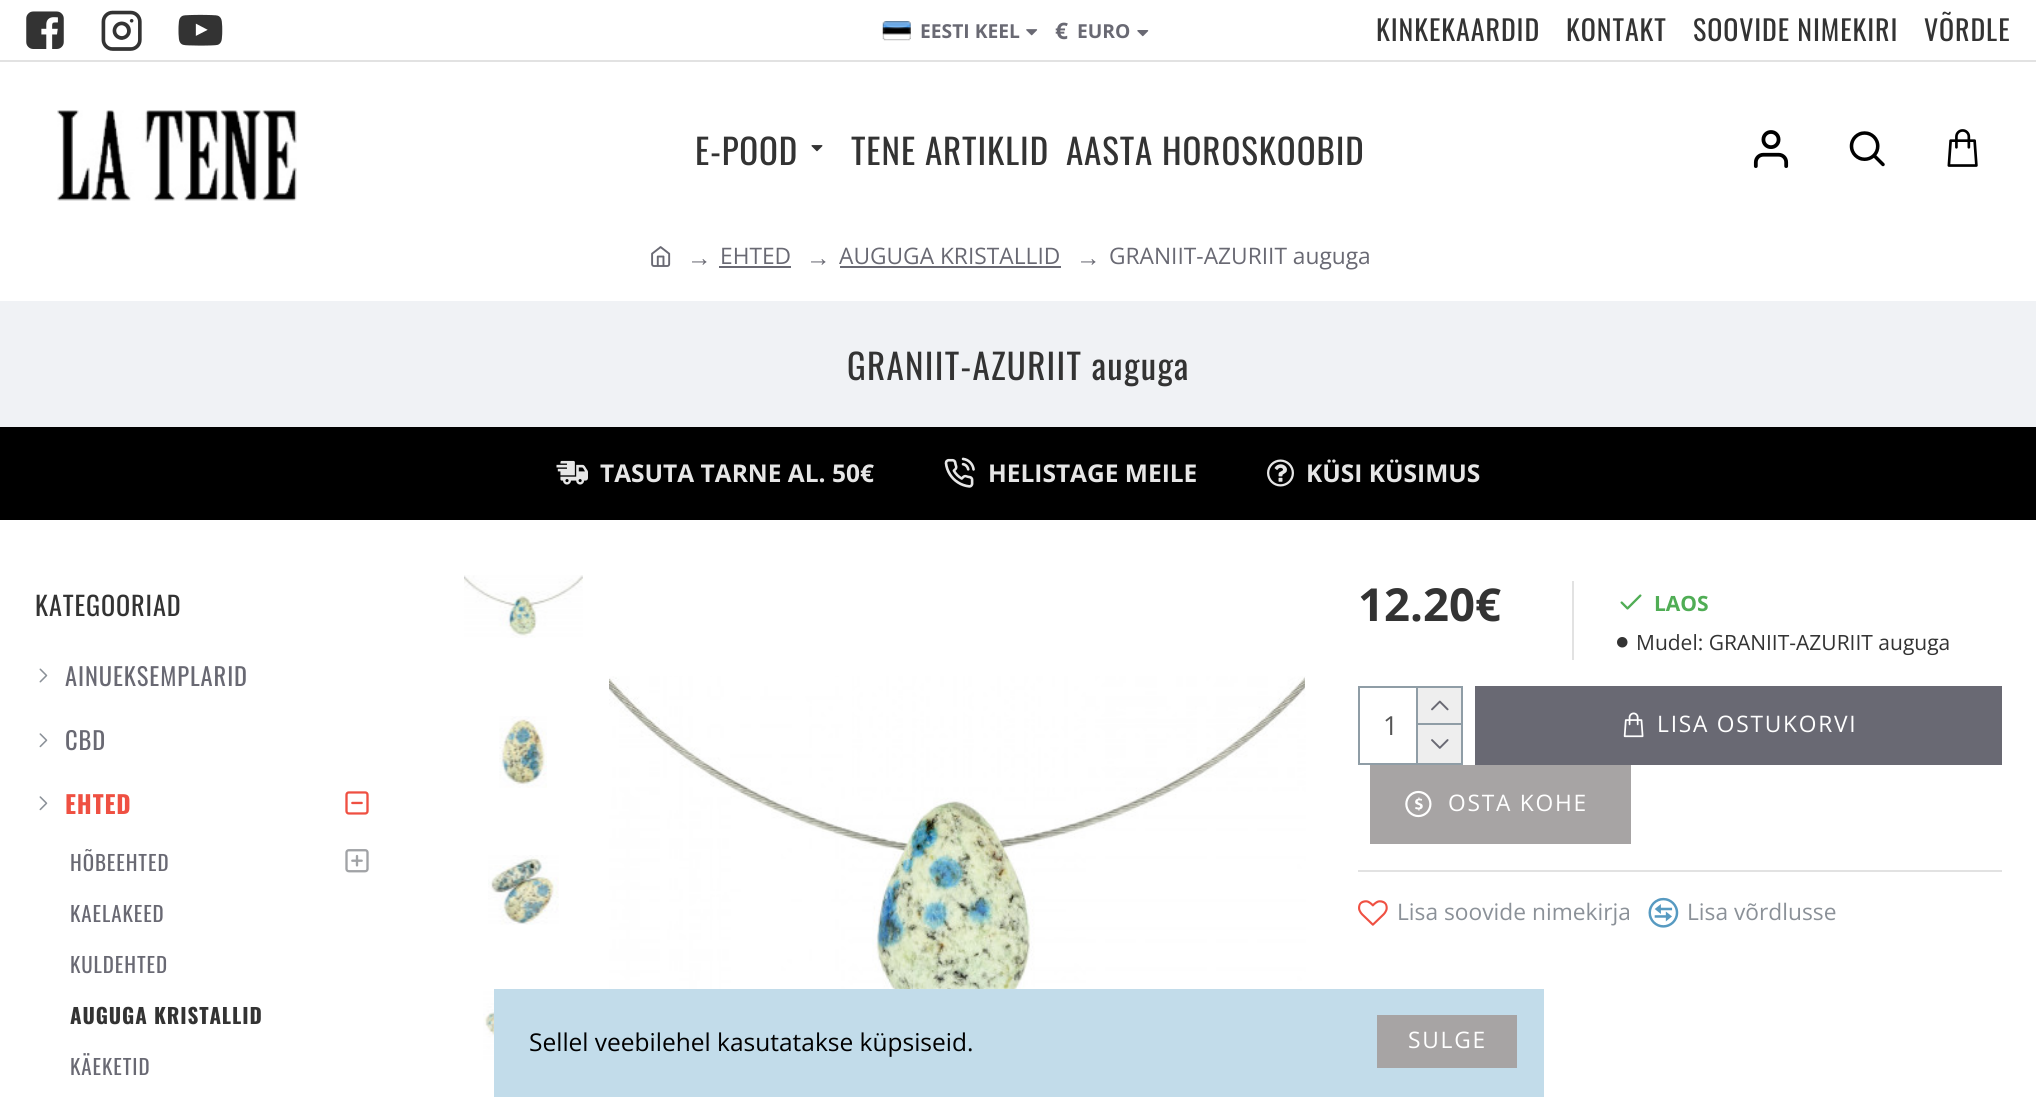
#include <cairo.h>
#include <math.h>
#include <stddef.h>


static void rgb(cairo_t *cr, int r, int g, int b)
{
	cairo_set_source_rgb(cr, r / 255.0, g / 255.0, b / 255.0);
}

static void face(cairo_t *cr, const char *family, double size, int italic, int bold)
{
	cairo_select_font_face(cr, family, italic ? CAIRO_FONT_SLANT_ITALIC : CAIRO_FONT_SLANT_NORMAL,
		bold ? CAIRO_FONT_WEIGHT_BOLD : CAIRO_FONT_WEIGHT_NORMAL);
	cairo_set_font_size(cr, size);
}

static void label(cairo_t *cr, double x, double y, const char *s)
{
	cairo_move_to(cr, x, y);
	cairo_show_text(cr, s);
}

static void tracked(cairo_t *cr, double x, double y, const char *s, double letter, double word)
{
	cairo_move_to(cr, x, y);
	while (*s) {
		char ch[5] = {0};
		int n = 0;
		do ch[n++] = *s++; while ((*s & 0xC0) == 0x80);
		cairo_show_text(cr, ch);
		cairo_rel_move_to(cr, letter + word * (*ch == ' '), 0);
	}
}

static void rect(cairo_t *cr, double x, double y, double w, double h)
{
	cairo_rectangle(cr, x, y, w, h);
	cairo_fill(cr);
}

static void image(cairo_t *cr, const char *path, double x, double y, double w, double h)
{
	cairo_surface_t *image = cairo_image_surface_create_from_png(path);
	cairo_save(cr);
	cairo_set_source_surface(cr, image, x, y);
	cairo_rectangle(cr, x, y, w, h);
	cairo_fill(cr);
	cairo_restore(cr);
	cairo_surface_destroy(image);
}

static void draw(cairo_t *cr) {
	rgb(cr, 255, 255, 255);
	cairo_paint(cr);
	image(cr, "image0.png", 26, 11, 38, 38);
	image(cr, "image1.png", 101, 10, 41, 41);
	image(cr, "image2.png", 178, 14, 45, 32);
	image(cr, "image3.png", 882, 21, 29, 20);
	face(cr, "Open Sans", 19.25, 0, 1);
	rgb(cr, 105, 105, 115);
	label(cr, 920, 38, "EESTI KEEL");
	image(cr, "image4.png", 1026, 29, 12, 7);
	face(cr, "Open Sans", 22.75, 0, 1);
	label(cr, 1055, 39, "€");
	face(cr, "Open Sans", 19.25, 0, 1);
	label(cr, 1077, 38, "EURO");
	image(cr, "image5.png", 1137, 30, 12, 7);
	face(cr, "Oswald", 28, 0, 0);
	rgb(cr, 51, 51, 51);
	tracked(cr, 1376, 41, "KINKEKAARDID", 0.9, 0);
	tracked(cr, 1566, 41, "KONTAKT", 0.9, 0);
	tracked(cr, 1693, 41, "SOOVIDE NIMEKIRI", 0.9, 0);
	tracked(cr, 1924, 41, "VÕRDLE", 0.9, 0);
	image(cr, "image6.png", 57, 110, 240, 91);
	face(cr, "Oswald", 35, 0, 0);
	tracked(cr, 695, 165, "E-POOD", 0.9, 0);
	image(cr, "image7.png", 811, 145, 12, 7);
	tracked(cr, 851, 165, "TENE ARTIKLID", 0.9, 0);
	tracked(cr, 1066, 165, "AASTA HOROSKOOBID", 0.9, 0);
	image(cr, "image8.png", 1753, 130, 36, 38);
	image(cr, "image9.png", 1849, 131, 36, 36);
	image(cr, "image10.png", 1947, 129, 31, 38);
	rgb(cr, 226, 226, 226);
	rect(cr, 0, 60, 2036, 2);
	image(cr, "image11.png", 651, 246, 20, 21);
	face(cr, "Liberation Serif", 24.5, 0, 0);
	rgb(cr, 105, 105, 115);
	label(cr, 687, 266, "→");
	face(cr, "Open Sans", 22.75, 0, 0);
	label(cr, 720, 264, "EHTED");
	rect(cr, 719, 266, 72, 2);
	face(cr, "Liberation Serif", 24.5, 0, 0);
	label(cr, 806, 266, "→");
	face(cr, "Open Sans", 22.75, 0, 0);
	label(cr, 839, 264, "AUGUGA KRISTALLID");
	rect(cr, 840, 266, 221, 2);
	face(cr, "Liberation Serif", 24.5, 0, 0);
	label(cr, 1076, 266, "→");
	face(cr, "Open Sans", 22.75, 0, 0);
	label(cr, 1109, 264, "GRANIIT-AZURIIT auguga");
	rgb(cr, 240, 242, 245);
	rect(cr, 0, 301, 2036, 126);
	face(cr, "Oswald", 35, 0, 0);
	rgb(cr, 51, 51, 51);
	tracked(cr, 847, 380, "GRANIIT-AZURIIT auguga", 1.3, 0);
	rgb(cr, 0, 0, 0);
	rect(cr, 0, 427, 2036, 93);
	image(cr, "image12.png", 556, 460, 32, 25);
	face(cr, "Open Sans", 24.5, 0, 1);
	rgb(cr, 230, 230, 230);
	label(cr, 600, 482, "TASUTA TARNE AL. 50€");
	image(cr, "image13.png", 944, 457, 31, 31);
	label(cr, 988, 482, "HELISTAGE MEILE");
	image(cr, "image14.png", 1267, 459, 27, 28);
	label(cr, 1306, 482, "KÜSI KÜSIMUS");
	face(cr, "Oswald", 26.25, 0, 0);
	rgb(cr, 51, 51, 51);
	tracked(cr, 35, 616, "KATEGOORIAD", 0.9, 0);
	image(cr, "image15.png", 39, 668, 9, 15);
	face(cr, "Oswald", 24.5, 0, 0);
	rgb(cr, 105, 105, 115);
	tracked(cr, 65, 686, "AINUEKSEMPLARID", 0.9, 0);
	image(cr, "image16.png", 39, 733, 9, 15);
	tracked(cr, 65, 750, "CBD", 0.9, 0);
	image(cr, "image16.png", 39, 796, 9, 15);
	face(cr, "Oswald", 24.5, 0, 1);
	rgb(cr, 239, 80, 66);
	tracked(cr, 65, 814, "EHTED", 0.9, 0);
	image(cr, "image17.png", 345, 791, 24, 24);
	face(cr, "Oswald", 21, 0, 0);
	rgb(cr, 105, 105, 115);
	tracked(cr, 70, 871, "HÕBEEHTED", 0.9, 0);
	image(cr, "image18.png", 345, 849, 24, 24);
	tracked(cr, 70, 922, "KAELAKEED", 0.9, 0);
	tracked(cr, 70, 973, "KULDEHTED", 0.9, 0);
	face(cr, "Oswald", 21, 0, 1);
	rgb(cr, 51, 51, 51);
	tracked(cr, 70, 1024, "AUGUGA KRISTALLID", 0.9, 0);
	face(cr, "Oswald", 21, 0, 0);
	rgb(cr, 105, 105, 115);
	tracked(cr, 70, 1075, "KÄEKETID", 0.9, 0);
	image(cr, "image19.png", 464, 575, 119, 63);
	image(cr, "image20.png", 499, 716, 48, 72);
	image(cr, "image21.png", 488, 855, 71, 70);
	image(cr, "image22.png", 483, 990, 11, 72);
	image(cr, "image23.png", 609, 676, 697, 313);
	rgb(cr, 255, 255, 255);
	rect(cr, 1305, 677, 1, 12);
	face(cr, "Open Sans", 45.5, 0, 1);
	rgb(cr, 51, 51, 51);
	label(cr, 1358, 621, "12.20€");
	rgb(cr, 226, 226, 226);
	rect(cr, 1572, 581, 2, 79);
	image(cr, "image24.png", 1620, 594, 22, 16);
	face(cr, "Open Sans", 21, 0, 1);
	rgb(cr, 80, 173, 85);
	label(cr, 1654, 611, "LAOS");
	image(cr, "image25.png", 1617, 637, 11, 11);
	face(cr, "Open Sans", 21, 0, 0);
	rgb(cr, 51, 51, 51);
	label(cr, 1636, 650, "Mudel: GRANIIT-AZURIIT auguga");
	cairo_rectangle(cr, 1359, 687, 103, 77);
	rgb(cr, 143, 157, 166);
	cairo_stroke(cr);
	face(cr, "Open Sans", 26.25, 0, 0);
	rgb(cr, 85, 85, 85);
	label(cr, 1383, 735, "1");
	rgb(cr, 143, 157, 166);
	rect(cr, 1416, 688, 2, 75);
	rgb(cr, 238, 238, 238);
	rect(cr, 1418, 688, 43, 35);
	rgb(cr, 143, 157, 166);
	rect(cr, 1418, 723, 43, 2);
	image(cr, "image26.png", 1431, 700, 18, 11);
	rgb(cr, 238, 238, 238);
	rect(cr, 1418, 725, 43, 38);
	image(cr, "image27.png", 1431, 739, 18, 10);
	rgb(cr, 105, 105, 115);
	rect(cr, 1475, 686, 527, 79);
	image(cr, "image28.png", 1623, 712, 21, 26);
	face(cr, "Open Sans", 22.75, 0, 0);
	rgb(cr, 255, 255, 255);
	tracked(cr, 1657, 732, "LISA OSTUKORVI", 1.75, 0);
	rgb(cr, 167, 164, 164);
	rect(cr, 1370, 765, 261, 79);
	image(cr, "image29.png", 1405, 790, 27, 28);
	rgb(cr, 255, 255, 255);
	tracked(cr, 1448, 811, "OSTA KOHE", 1.75, 0);
	rgb(cr, 226, 226, 226);
	rect(cr, 1358, 870, 644, 2);
	image(cr, "image30.png", 1358, 900, 30, 26);
	rgb(cr, 139, 145, 152);
	label(cr, 1397, 920, "Lisa soovide nimekirja");
	image(cr, "image31.png", 1648, 897, 31, 31);
	label(cr, 1687, 920, "Lisa võrdlusse");
	rgb(cr, 194, 220, 234);
	rect(cr, 494, 989, 1050, 108);
	face(cr, "Open Sans", 24.5, 0, 0);
	rgb(cr, 0, 0, 0);
	label(cr, 529, 1051, "Sellel veebilehel kasutatakse küpsiseid.");
	rgb(cr, 167, 164, 164);
	rect(cr, 1377, 1015, 140, 53);
	face(cr, "Open Sans", 22.75, 0, 0);
	rgb(cr, 255, 255, 255);
	tracked(cr, 1408, 1048, "SULGE", 1.75, 0);
}

int main(void) {
	cairo_surface_t *surface = cairo_image_surface_create(CAIRO_FORMAT_RGB24, 2036, 1097);
	cairo_t *cr = cairo_create(surface);
	cairo_font_options_t *options = cairo_font_options_create();
	cairo_font_options_set_hint_metrics(options, CAIRO_HINT_METRICS_OFF);
	cairo_font_options_set_hint_style(options, CAIRO_HINT_STYLE_NONE);
	cairo_set_font_options(cr, options);
	cairo_set_miter_limit(cr, 4);
	draw(cr);
	cairo_surface_write_to_png(surface, "render.png");
	cairo_font_options_destroy(options);
	cairo_destroy(cr);
	cairo_surface_destroy(surface);
	return 0;
}
